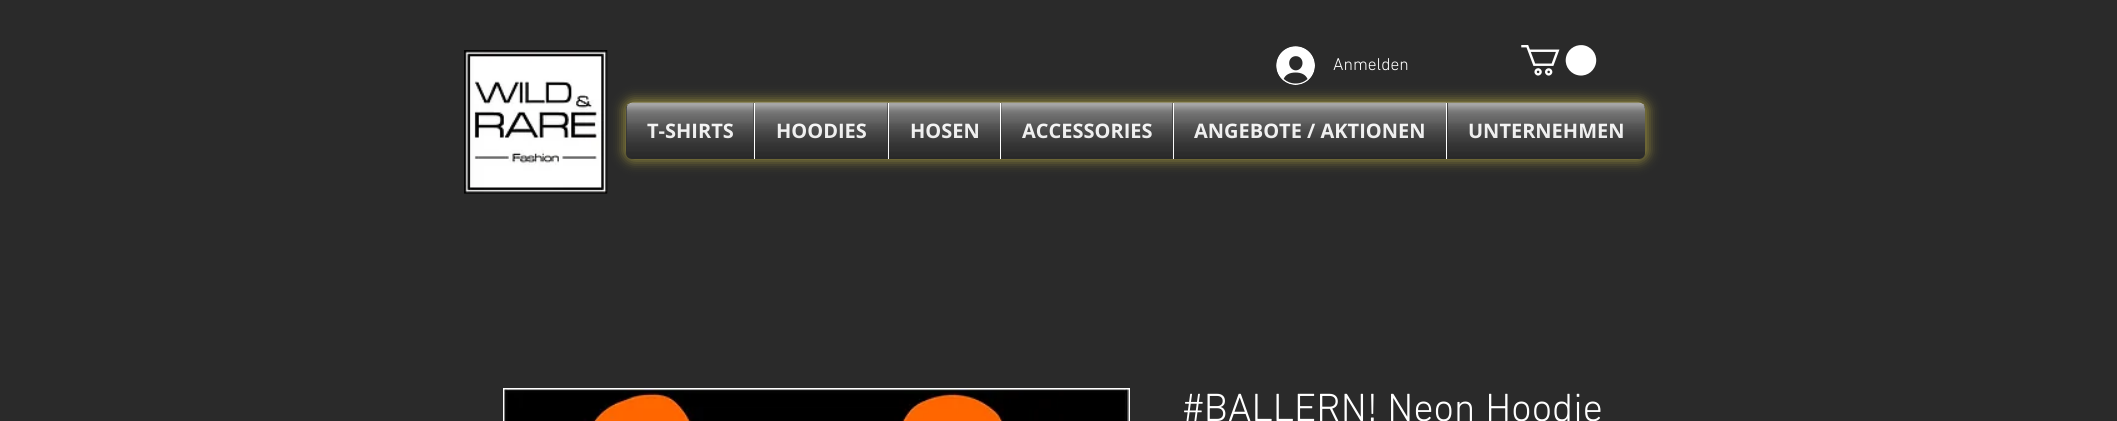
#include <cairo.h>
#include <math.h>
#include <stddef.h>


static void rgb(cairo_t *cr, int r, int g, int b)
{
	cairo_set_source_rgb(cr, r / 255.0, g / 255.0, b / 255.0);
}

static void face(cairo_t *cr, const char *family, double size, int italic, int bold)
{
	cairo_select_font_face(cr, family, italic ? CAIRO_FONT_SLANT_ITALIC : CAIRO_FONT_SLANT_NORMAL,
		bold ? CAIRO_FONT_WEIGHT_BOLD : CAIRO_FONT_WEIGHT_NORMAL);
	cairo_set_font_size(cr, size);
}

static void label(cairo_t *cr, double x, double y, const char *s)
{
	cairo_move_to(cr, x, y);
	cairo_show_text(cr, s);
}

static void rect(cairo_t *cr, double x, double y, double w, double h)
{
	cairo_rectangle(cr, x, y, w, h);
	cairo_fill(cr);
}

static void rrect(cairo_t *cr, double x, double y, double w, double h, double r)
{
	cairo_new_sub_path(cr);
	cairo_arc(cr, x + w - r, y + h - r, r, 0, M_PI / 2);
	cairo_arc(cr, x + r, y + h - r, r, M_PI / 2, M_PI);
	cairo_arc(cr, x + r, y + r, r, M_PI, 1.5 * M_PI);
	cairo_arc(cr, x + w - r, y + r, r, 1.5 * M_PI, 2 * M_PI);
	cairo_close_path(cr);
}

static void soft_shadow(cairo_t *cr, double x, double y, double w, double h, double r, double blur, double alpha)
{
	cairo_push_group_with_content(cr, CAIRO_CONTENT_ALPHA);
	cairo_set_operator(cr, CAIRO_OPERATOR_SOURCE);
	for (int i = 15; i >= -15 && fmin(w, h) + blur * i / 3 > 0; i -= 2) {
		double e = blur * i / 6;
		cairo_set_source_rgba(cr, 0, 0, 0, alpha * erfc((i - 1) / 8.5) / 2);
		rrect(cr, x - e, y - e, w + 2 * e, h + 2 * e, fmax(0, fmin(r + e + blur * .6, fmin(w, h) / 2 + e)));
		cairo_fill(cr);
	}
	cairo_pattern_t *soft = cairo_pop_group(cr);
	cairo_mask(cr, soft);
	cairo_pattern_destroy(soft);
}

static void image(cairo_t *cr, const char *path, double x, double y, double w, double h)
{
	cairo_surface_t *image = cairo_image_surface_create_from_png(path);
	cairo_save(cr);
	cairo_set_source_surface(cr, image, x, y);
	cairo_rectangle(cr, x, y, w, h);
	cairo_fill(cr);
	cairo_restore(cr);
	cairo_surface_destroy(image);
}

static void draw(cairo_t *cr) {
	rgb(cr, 42, 42, 42);
	cairo_paint(cr);
	image(cr, "image0.png", 464, 50, 144, 144);
	image(cr, "image1.png", 1276, 46, 39, 39);
	face(cr, "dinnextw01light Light", 17.5, 0, 0);
	rgb(cr, 255, 255, 255);
	label(cr, 1333, 70, "Anmelden");
	image(cr, "image2.png", 1521, 45, 76, 31);
	rgb(cr, 255, 234, 79);
	soft_shadow(cr, 624, 100, 1024, 61, 9, 6, 0.49);
	image(cr, "image3.png", 626, 102, 1019, 52);
	image(cr, "image4.png", 1642, 153, 3, 5);
	rgb(cr, 42, 42, 42);
	cairo_new_path(cr);
	cairo_move_to(cr, 632, 103);
	cairo_line_to(cr, 754, 103);
	cairo_line_to(cr, 754, 159);
	cairo_line_to(cr, 632, 159);
	cairo_curve_to(cr, 628.5, 159, 626, 156.5, 626, 153);
	cairo_line_to(cr, 626, 109);
	cairo_curve_to(cr, 626, 105.5, 628.5, 103, 632, 103);
	cairo_close_path(cr);
	cairo_fill(cr);
	face(cr, "Open Sans", 20, 0, 1);
	rgb(cr, 255, 255, 255);
	label(cr, 647, 138, "T-SHIRTS");
	image(cr, "image5.png", 626, 102, 128, 56);
	image(cr, "image6.png", 627, 123, 126, 35);
	rgb(cr, 42, 42, 42);
	rect(cr, 755, 103, 133, 56);
	rgb(cr, 255, 255, 255);
	rect(cr, 754, 103, 1, 56);
	label(cr, 776, 138, "HOODIES");
	image(cr, "image7.png", 755, 102, 133, 56);
	image(cr, "image8.png", 755, 123, 132, 35);
	rgb(cr, 42, 42, 42);
	rect(cr, 889, 103, 111, 56);
	rgb(cr, 255, 255, 255);
	rect(cr, 888, 103, 1, 56);
	label(cr, 910, 138, "HOSEN");
	image(cr, "image9.png", 888, 102, 112, 56);
	image(cr, "image10.png", 888, 123, 112, 36);
	rgb(cr, 42, 42, 42);
	rect(cr, 1001, 103, 172, 56);
	rgb(cr, 255, 255, 255);
	rect(cr, 1000, 103, 1, 56);
	label(cr, 1022, 138, "ACCESSORIES");
	image(cr, "image11.png", 1001, 102, 172, 56);
	image(cr, "image12.png", 1001, 123, 171, 35);
	rgb(cr, 42, 42, 42);
	rect(cr, 1174, 103, 272, 56);
	rgb(cr, 255, 255, 255);
	rect(cr, 1173, 103, 1, 56);
	label(cr, 1194, 138, "ANGEBOTE / AKTIONEN");
	image(cr, "image13.png", 1173, 102, 274, 56);
	image(cr, "image14.png", 1173, 123, 273, 36);
	rgb(cr, 42, 42, 42);
	cairo_new_path(cr);
	cairo_move_to(cr, 1446, 103);
	cairo_line_to(cr, 1639, 103);
	cairo_curve_to(cr, 1642.5, 103, 1645, 105.5, 1645, 109);
	cairo_line_to(cr, 1645, 153);
	cairo_curve_to(cr, 1645, 156.5, 1642.5, 159, 1639, 159);
	cairo_line_to(cr, 1446, 159);
	cairo_close_path(cr);
	cairo_fill(cr);
	rgb(cr, 255, 255, 255);
	rect(cr, 1446, 103, 1, 56);
	label(cr, 1468, 138, "UNTERNEHMEN");
	image(cr, "image15.png", 1447, 102, 198, 56);
	image(cr, "image16.png", 1448, 123, 197, 35);
	cairo_rectangle(cr, 503.5, 388.5, 626, 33);
	cairo_set_line_width(cr, 1);
	cairo_stroke(cr);
	image(cr, "image17.png", 504, 389, 625, 32);
	face(cr, "dinnextw01light Light", 40, 0, 0);
	label(cr, 1183, 421, "#BALLERN! Neon Hoodie");
}

int main(void) {
	cairo_surface_t *surface = cairo_image_surface_create(CAIRO_FORMAT_RGB24, 2117, 421);
	cairo_t *cr = cairo_create(surface);
	cairo_font_options_t *options = cairo_font_options_create();
	cairo_font_options_set_hint_metrics(options, CAIRO_HINT_METRICS_OFF);
	cairo_font_options_set_hint_style(options, CAIRO_HINT_STYLE_NONE);
	cairo_set_font_options(cr, options);
	cairo_set_miter_limit(cr, 4);
	draw(cr);
	cairo_surface_write_to_png(surface, "render.png");
	cairo_font_options_destroy(options);
	cairo_destroy(cr);
	cairo_surface_destroy(surface);
	return 0;
}
